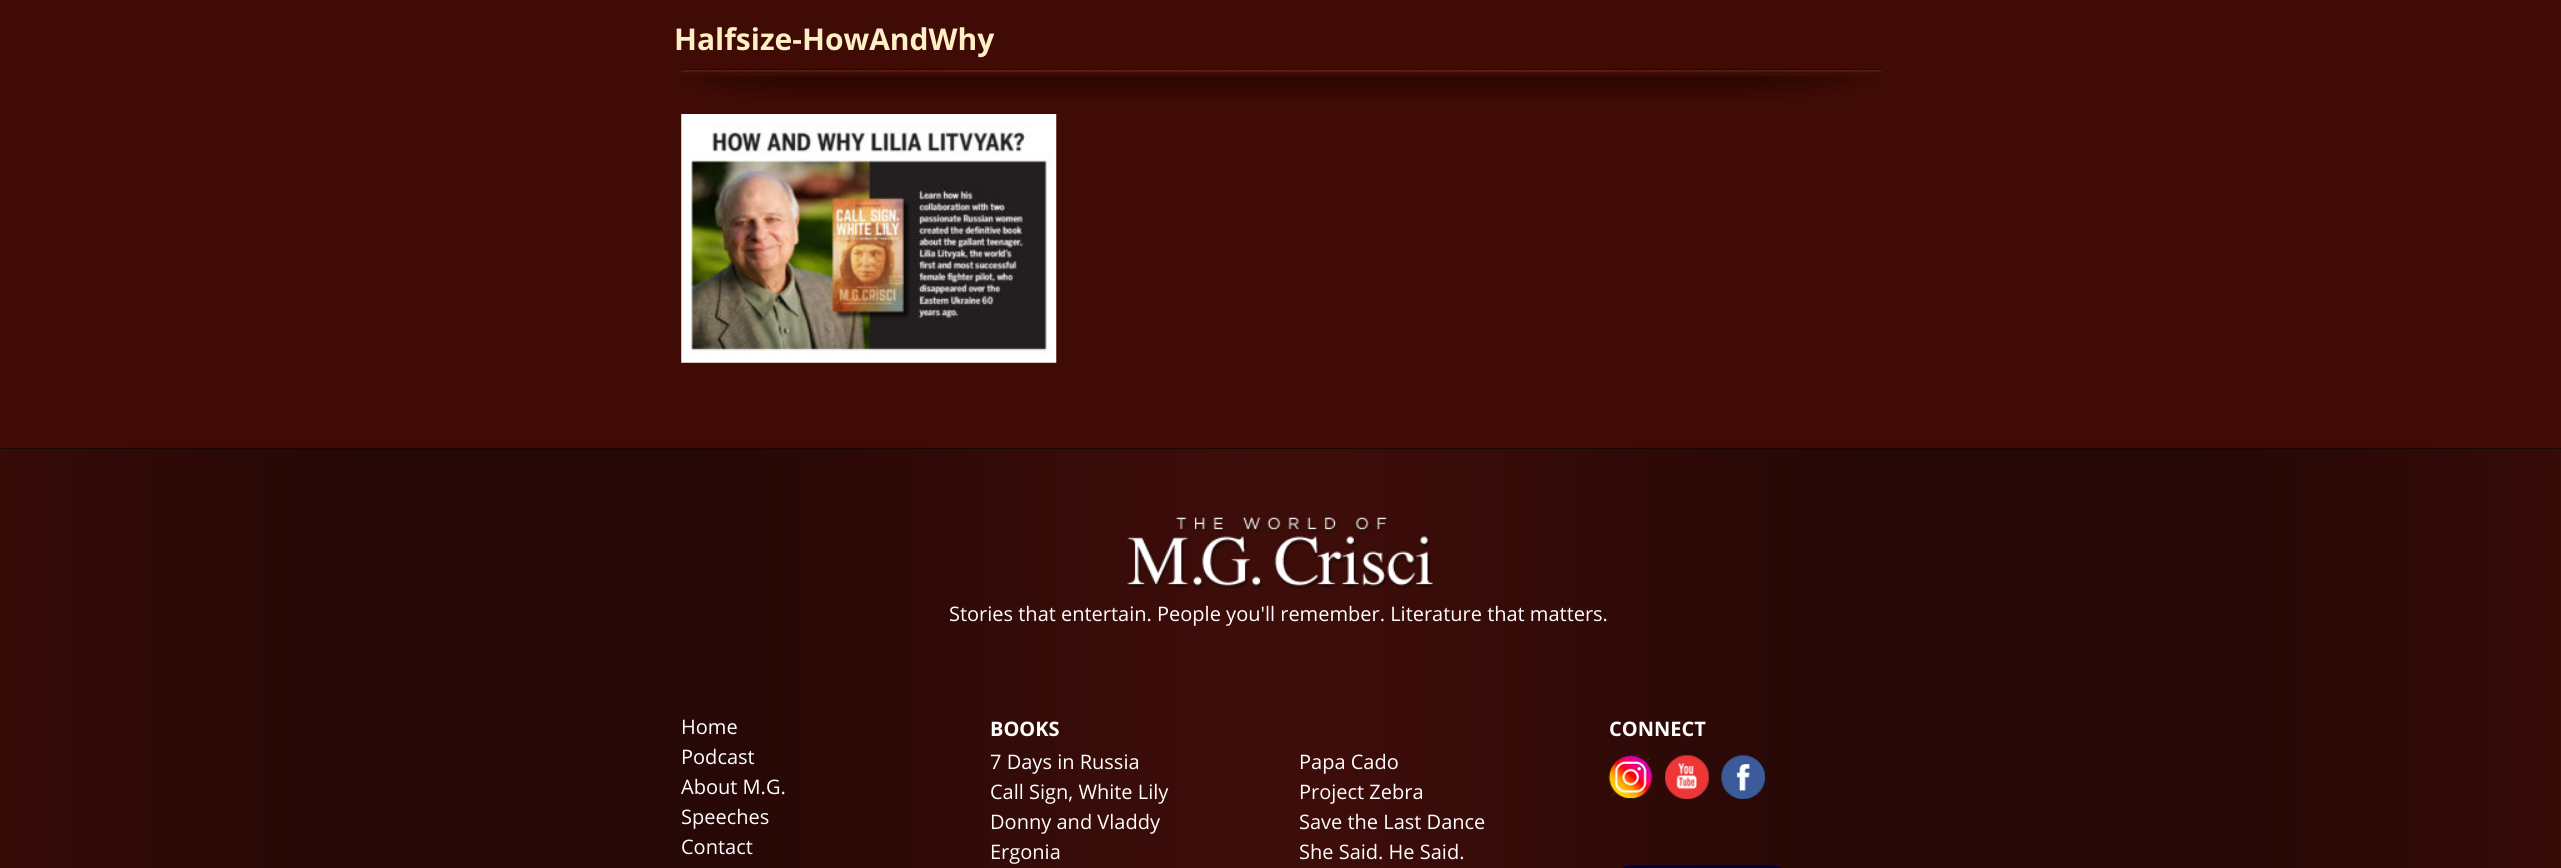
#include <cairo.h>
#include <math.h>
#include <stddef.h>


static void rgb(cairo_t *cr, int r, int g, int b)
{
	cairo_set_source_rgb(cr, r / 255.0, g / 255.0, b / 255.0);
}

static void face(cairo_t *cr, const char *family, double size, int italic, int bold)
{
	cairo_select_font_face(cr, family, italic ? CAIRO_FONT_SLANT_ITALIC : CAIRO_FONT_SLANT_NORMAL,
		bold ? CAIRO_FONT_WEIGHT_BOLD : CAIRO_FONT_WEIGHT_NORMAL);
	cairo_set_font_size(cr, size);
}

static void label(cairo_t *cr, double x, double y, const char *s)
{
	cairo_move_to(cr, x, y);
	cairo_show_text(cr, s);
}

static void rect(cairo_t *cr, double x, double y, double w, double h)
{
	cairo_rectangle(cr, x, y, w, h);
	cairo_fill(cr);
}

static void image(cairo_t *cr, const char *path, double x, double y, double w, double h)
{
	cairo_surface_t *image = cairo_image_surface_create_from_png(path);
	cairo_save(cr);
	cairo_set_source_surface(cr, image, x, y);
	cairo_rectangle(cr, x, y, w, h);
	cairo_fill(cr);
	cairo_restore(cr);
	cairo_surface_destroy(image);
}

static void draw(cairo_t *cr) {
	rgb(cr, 65, 11, 5);
	cairo_paint(cr);
	image(cr, "image0.png", 681, 69, 1201, 32);
	face(cr, "Open Sans", 30, 0, 1);
	rgb(cr, 255, 239, 196);
	label(cr, 674, 50, "Halfsize-HowAndWhy");
	image(cr, "image1.png", 681, 114, 376, 249);
	image(cr, "image2.png", 0, 447, 2561, 421);
	rgb(cr, 27, 6, 4);
	rect(cr, 0, 448, 2561, 1);
	image(cr, "image3.png", 1127, 517, 307, 72);
	face(cr, "Open Sans", 20, 0, 0);
	rgb(cr, 255, 255, 255);
	label(cr, 949, 621, "Stories that entertain. People you'll remember. Literature that matters.");
	label(cr, 681, 734, "Home");
	label(cr, 681, 764, "Podcast");
	label(cr, 681, 794, "About M.G.");
	label(cr, 681, 824, "Speeches");
	label(cr, 681, 854, "Contact");
	face(cr, "Open Sans", 20, 0, 1);
	label(cr, 990, 736, "BOOKS");
	face(cr, "Open Sans", 20, 0, 0);
	label(cr, 990, 769, "7 Days in Russia");
	label(cr, 990, 799, "Call Sign, White Lily");
	label(cr, 990, 829, "Donny and Vladdy");
	label(cr, 990, 859, "Ergonia");
	face(cr, "Open Sans", 20, 0, 1);
	label(cr, 1609, 736, "CONNECT");
	image(cr, "image4.png", 1608, 755, 45, 44);
	image(cr, "image5.png", 1665, 755, 44, 44);
	image(cr, "image6.png", 1721, 755, 44, 44);
	image(cr, "image7.png", 1623, 865, 159, 3);
	face(cr, "Open Sans", 20, 0, 0);
	label(cr, 1299, 769, "Papa Cado");
	label(cr, 1299, 799, "Project Zebra");
	label(cr, 1299, 829, "Save the Last Dance");
	label(cr, 1299, 859, "She Said. He Said.");
}

int main(void) {
	cairo_surface_t *surface = cairo_image_surface_create(CAIRO_FORMAT_RGB24, 2561, 868);
	cairo_t *cr = cairo_create(surface);
	cairo_font_options_t *options = cairo_font_options_create();
	cairo_font_options_set_hint_metrics(options, CAIRO_HINT_METRICS_OFF);
	cairo_font_options_set_hint_style(options, CAIRO_HINT_STYLE_NONE);
	cairo_set_font_options(cr, options);
	cairo_set_miter_limit(cr, 4);
	draw(cr);
	cairo_surface_write_to_png(surface, "render.png");
	cairo_font_options_destroy(options);
	cairo_destroy(cr);
	cairo_surface_destroy(surface);
	return 0;
}
